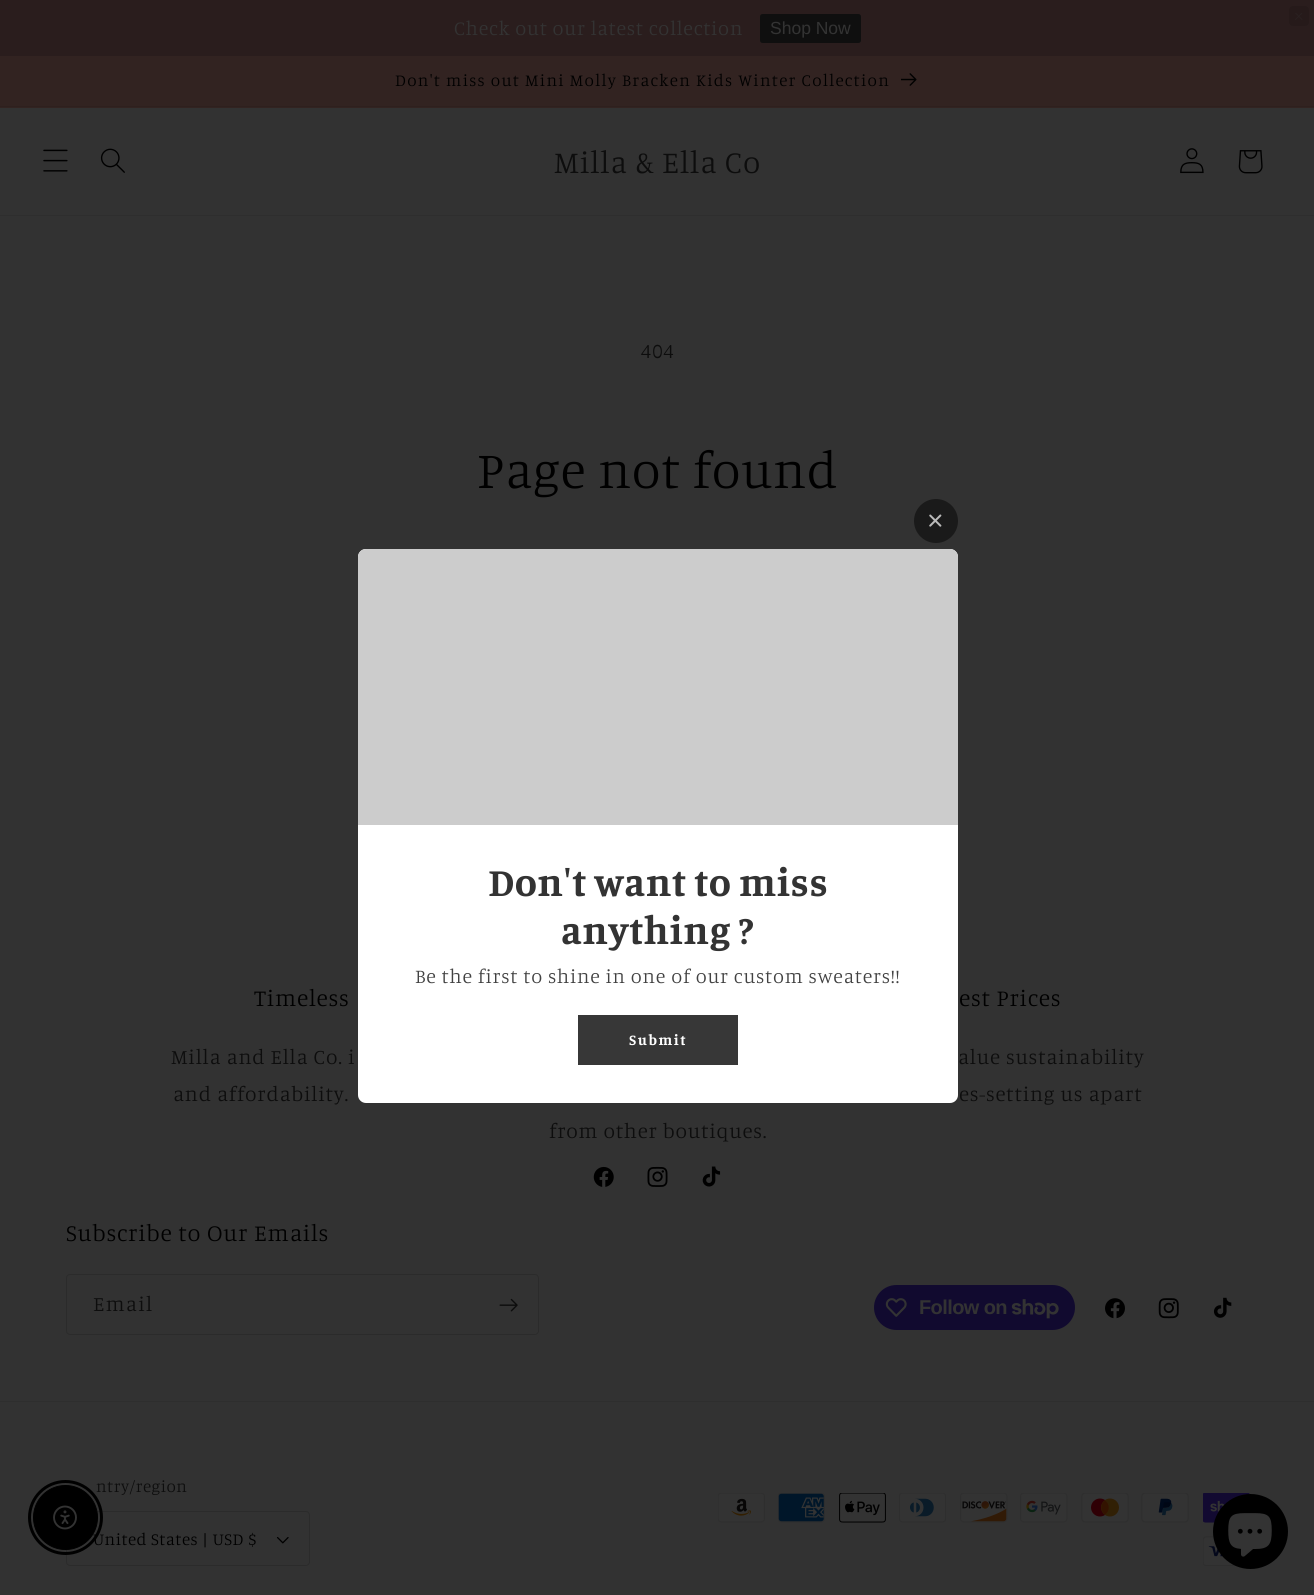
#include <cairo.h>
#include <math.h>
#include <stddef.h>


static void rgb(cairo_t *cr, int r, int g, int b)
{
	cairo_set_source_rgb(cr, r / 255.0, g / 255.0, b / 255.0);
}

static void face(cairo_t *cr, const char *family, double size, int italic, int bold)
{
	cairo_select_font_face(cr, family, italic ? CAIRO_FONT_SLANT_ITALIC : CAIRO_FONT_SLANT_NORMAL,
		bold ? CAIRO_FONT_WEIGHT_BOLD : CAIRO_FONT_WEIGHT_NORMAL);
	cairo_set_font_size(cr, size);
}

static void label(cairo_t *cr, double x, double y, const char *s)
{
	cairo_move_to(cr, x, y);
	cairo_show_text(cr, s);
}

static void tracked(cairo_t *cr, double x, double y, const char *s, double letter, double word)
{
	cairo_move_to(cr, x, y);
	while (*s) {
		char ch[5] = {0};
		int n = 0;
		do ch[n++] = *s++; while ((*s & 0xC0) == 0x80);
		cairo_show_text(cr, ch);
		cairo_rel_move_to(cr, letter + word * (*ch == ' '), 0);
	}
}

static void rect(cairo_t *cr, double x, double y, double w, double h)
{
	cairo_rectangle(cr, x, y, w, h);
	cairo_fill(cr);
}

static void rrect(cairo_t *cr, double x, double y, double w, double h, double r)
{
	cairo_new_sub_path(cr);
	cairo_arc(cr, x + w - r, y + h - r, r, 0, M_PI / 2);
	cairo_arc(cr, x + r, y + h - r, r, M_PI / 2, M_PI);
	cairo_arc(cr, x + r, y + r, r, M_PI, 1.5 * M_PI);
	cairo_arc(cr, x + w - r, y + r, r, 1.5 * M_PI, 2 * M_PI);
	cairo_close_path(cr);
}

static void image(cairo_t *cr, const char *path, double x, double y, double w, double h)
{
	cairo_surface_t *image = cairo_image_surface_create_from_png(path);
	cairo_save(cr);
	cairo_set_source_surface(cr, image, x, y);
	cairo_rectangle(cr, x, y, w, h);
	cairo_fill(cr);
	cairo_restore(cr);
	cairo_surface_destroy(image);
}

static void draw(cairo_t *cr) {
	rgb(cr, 50, 50, 50);
	cairo_paint(cr);
	rgb(cr, 42, 29, 29);
	rect(cr, 0, 0, 1314, 56);
	rgb(cr, 38, 26, 26);
	rrect(cr, 1289, 6, 20, 20, 4);
	cairo_fill(cr);
	image(cr, "image0.png", 1295, 13, 8, 7);
	face(cr, "Manuale Light", 20, 0, 0);
	rgb(cr, 51, 51, 51);
	tracked(cr, 454, 35, "Check out our latest collection", 0.8, 0);
	rgb(cr, 15, 15, 15);
	rrect(cr, 760, 14, 101, 29, 2.5);
	cairo_fill(cr);
	face(cr, "Liberation Sans", 17.5, 0, 0);
	rgb(cr, 51, 51, 51);
	label(cr, 770, 34, "Shop Now");
	rgb(cr, 50, 35, 33);
	rect(cr, 0, 56, 1314, 52);
	rgb(cr, 46, 32, 30);
	rect(cr, 0, 106, 1314, 1);
	face(cr, "Manuale Light", 17.05, 0, 0);
	rgb(cr, 0, 0, 0);
	tracked(cr, 395, 86, "Don't miss out Mini Molly Bracken Kids Winter Collection", 1.3, 0);
	image(cr, "image1.png", 901, 73, 16, 13);
	rgb(cr, 46, 46, 46);
	rect(cr, 0, 215, 1314, 1);
	image(cr, "image2.png", 43, 149, 25, 23);
	image(cr, "image3.png", 100, 148, 25, 25);
	face(cr, "Manuale Light", 31.5, 0, 0);
	rgb(cr, 13, 13, 13);
	tracked(cr, 554, 173, "Milla & Ella Co", 0.8, 0);
	image(cr, "image4.png", 1180, 148, 24, 26);
	image(cr, "image5.png", 1238, 150, 25, 24);
	face(cr, "Manuale Light", 21, 0, 0);
	tracked(cr, 641, 358, "404", 0.8, 0);
	face(cr, "Manuale Light", 52.5, 0, 0);
	rgb(cr, 0, 0, 0);
	tracked(cr, 477, 488, "Page not found", 0.8, 0);
	rgb(cr, 26, 26, 26);
	cairo_new_path(cr);
	cairo_arc(cr, 936, 521, 22, 0, 2 * M_PI);
	cairo_fill(cr);
	image(cr, "image6.png", 929, 514, 13, 13);
	rgb(cr, 255, 255, 255);
	rrect(cr, 358, 549, 600, 554, 8);
	cairo_fill(cr);
	rgb(cr, 204, 204, 204);
	cairo_new_path(cr);
	cairo_move_to(cr, 366, 549);
	cairo_line_to(cr, 950, 549);
	cairo_curve_to(cr, 954.5, 549, 958, 552.5, 958, 557);
	cairo_line_to(cr, 958, 825);
	cairo_line_to(cr, 358, 825);
	cairo_line_to(cr, 358, 557);
	cairo_curve_to(cr, 358, 552.5, 361.5, 549, 366, 549);
	cairo_close_path(cr);
	cairo_fill(cr);
	face(cr, "Manuale", 40, 0, 1);
	rgb(cr, 51, 51, 51);
	tracked(cr, 488, 896, "Don't want to miss", 0.8, 0);
	tracked(cr, 561, 944, "anything ?", 0.8, 0);
	face(cr, "Manuale Light", 20, 0, 0);
	rgb(cr, 66, 66, 66);
	tracked(cr, 415, 983, "Be the first to shine in one of our custom sweaters!!", 0.8, 0);
	rgb(cr, 55, 55, 55);
	rect(cr, 578, 1015, 160, 50);
	face(cr, "Manuale", 15, 0, 1);
	rgb(cr, 255, 255, 255);
	tracked(cr, 629, 1045, "Submit", 1.5, 0);
	face(cr, "Manuale Light", 17.05, 0, 0);
	rgb(cr, 13, 13, 13);
	tracked(cr, 96, 1492, "ntry/region", 0.5, 0);
	image(cr, "image17.png", 276, 1537, 13, 7);
	rrect(cr, 66.5, 1511.5, 243, 54, 3.5);
	rgb(cr, 43, 43, 43);
	cairo_set_line_width(cr, 1);
	cairo_stroke(cr);
	cairo_arc(cr, 65.5, 1517.5, 36, 0, 2 * M_PI);
	rgb(cr, 0, 0, 0);
	cairo_set_line_width(cr, 3);
	cairo_stroke(cr);
	cairo_arc(cr, 65.5, 1517.5, 32, 0, 2 * M_PI);
	cairo_fill_preserve(cr);
	cairo_set_line_width(cr, 1);
	cairo_stroke(cr);
	image(cr, "image7.png", 53, 1505, 24, 25);
	face(cr, "Manuale Light", 23.6, 0, 0);
	tracked(cr, 254, 1006, "Timeless", 0.8, 0);
	tracked(cr, 959, 1006, "est Prices", 0.8, 0);
	face(cr, "Manuale Light", 21, 0, 0);
	rgb(cr, 13, 13, 13);
	tracked(cr, 171, 1064, "Milla and Ella Co. i", 0.8, 0);
	tracked(cr, 958, 1064, "alue sustainability", 0.8, 0);
	tracked(cr, 173, 1101, "and affordability.", 0.8, 0);
	tracked(cr, 959, 1101, "es-setting us apart", 0.8, 0);
	tracked(cr, 549, 1138, "from other boutiques.", 0.8, 0);
	image(cr, "image8.png", 593, 1166, 21, 21);
	image(cr, "image9.png", 647, 1166, 21, 21);
	image(cr, "image10.png", 702, 1166, 19, 21);
	face(cr, "Manuale Light", 23.6, 0, 0);
	rgb(cr, 0, 0, 0);
	tracked(cr, 66, 1241, "Subscribe to Our Emails", 0.8, 0);
	rrect(cr, 66.5, 1274.5, 472, 60, 3.5);
	rgb(cr, 43, 43, 43);
	cairo_stroke(cr);
	face(cr, "Manuale Light", 21, 0, 0);
	rgb(cr, 13, 13, 13);
	tracked(cr, 93, 1311, "Email", 1.3, 0);
	image(cr, "image11.png", 499, 1298, 19, 14);
	rgb(cr, 17, 10, 47);
	rrect(cr, 874, 1285, 201, 45, 22.5);
	cairo_fill(cr);
	image(cr, "image12.png", 885, 1298, 22, 19);
	face(cr, "Liberation Sans", 20, 0, 1);
	rgb(cr, 51, 51, 51);
	tracked(cr, 919, 1314, "Follow on", -0.6, 0);
	image(cr, "image13.png", 1011, 1299, 48, 20);
	image(cr, "image14.png", 1105, 1298, 20, 21);
	image(cr, "image15.png", 1158, 1298, 21, 21);
	image(cr, "image16.png", 1213, 1297, 19, 21);
	rgb(cr, 46, 46, 46);
	rect(cr, 0, 1401, 1314, 1);
	face(cr, "Manuale Light", 17.05, 0, 0);
	rgb(cr, 0, 0, 0);
	tracked(cr, 93, 1545, "United States | USD $", 0.5, 0);
	image(cr, "image18.png", 718, 1493, 47, 30);
	image(cr, "image19.png", 778, 1493, 47, 30);
	image(cr, "image20.png", 839, 1493, 47, 30);
	image(cr, "image21.png", 899, 1493, 47, 30);
	image(cr, "image22.png", 960, 1493, 48, 30);
	image(cr, "image23.png", 1020, 1493, 48, 30);
	image(cr, "image24.png", 1081, 1493, 48, 30);
	image(cr, "image25.png", 1141, 1493, 48, 30);
	image(cr, "image26.png", 1203, 1493, 47, 30);
	image(cr, "image27.png", 1203, 1536, 33, 30);
	cairo_arc(cr, 1250.5, 1531.5, 37.5, 0, 2 * M_PI);
	cairo_fill(cr);
	image(cr, "image28.png", 1228, 1513, 44, 44);
}

int main(void) {
	cairo_surface_t *surface = cairo_image_surface_create(CAIRO_FORMAT_RGB24, 1314, 1595);
	cairo_t *cr = cairo_create(surface);
	cairo_font_options_t *options = cairo_font_options_create();
	cairo_font_options_set_hint_metrics(options, CAIRO_HINT_METRICS_OFF);
	cairo_font_options_set_hint_style(options, CAIRO_HINT_STYLE_NONE);
	cairo_set_font_options(cr, options);
	cairo_set_miter_limit(cr, 4);
	draw(cr);
	cairo_surface_write_to_png(surface, "render.png");
	cairo_font_options_destroy(options);
	cairo_destroy(cr);
	cairo_surface_destroy(surface);
	return 0;
}
